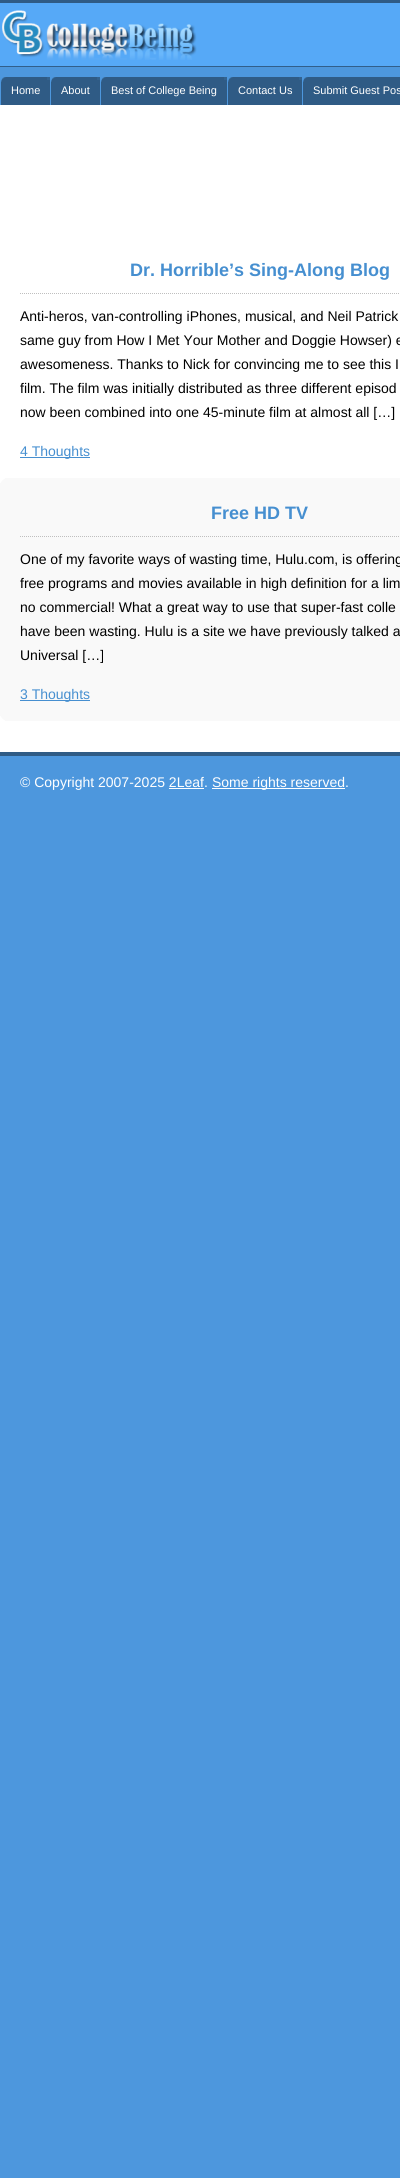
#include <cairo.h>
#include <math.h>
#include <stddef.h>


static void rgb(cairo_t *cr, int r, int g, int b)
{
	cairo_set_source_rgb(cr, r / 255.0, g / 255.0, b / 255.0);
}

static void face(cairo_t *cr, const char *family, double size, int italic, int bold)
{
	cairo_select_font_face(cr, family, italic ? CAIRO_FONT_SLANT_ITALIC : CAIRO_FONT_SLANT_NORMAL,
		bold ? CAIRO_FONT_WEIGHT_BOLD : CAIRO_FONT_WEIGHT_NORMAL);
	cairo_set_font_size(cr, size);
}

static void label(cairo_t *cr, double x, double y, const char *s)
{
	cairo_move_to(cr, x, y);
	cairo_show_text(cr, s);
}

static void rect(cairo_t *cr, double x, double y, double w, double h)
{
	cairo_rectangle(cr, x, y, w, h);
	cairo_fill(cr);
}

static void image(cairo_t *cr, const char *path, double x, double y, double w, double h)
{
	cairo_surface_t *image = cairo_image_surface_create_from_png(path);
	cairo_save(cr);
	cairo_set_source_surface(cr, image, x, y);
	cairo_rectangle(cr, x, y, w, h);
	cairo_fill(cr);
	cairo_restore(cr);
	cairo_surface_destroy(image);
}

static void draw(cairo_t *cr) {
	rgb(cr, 77, 151, 221);
	cairo_paint(cr);
	rgb(cr, 86, 169, 247);
	rect(cr, 0, 3, 400, 63);
	rgb(cr, 47, 91, 133);
	rect(cr, 0, 0, 400, 3);
	image(cr, "image0.png", 2, 10, 195, 50);
	rgb(cr, 49, 95, 139);
	rect(cr, 0, 66, 400, 1);
	rgb(cr, 47, 91, 133);
	rect(cr, 1, 77, 49, 28);
	rgb(cr, 51, 99, 144);
	rect(cr, 47, 77, 3, 3);
	image(cr, "image1.png", 1, 77, 5, 5);
	face(cr, "Liberation Sans", 11, 0, 0);
	rgb(cr, 255, 255, 255);
	label(cr, 11, 94, "Home");
	rgb(cr, 47, 91, 133);
	rect(cr, 51, 77, 49, 28);
	rgb(cr, 51, 99, 144);
	rect(cr, 97, 77, 3, 3);
	image(cr, "image1.png", 51, 77, 5, 5);
	rgb(cr, 255, 255, 255);
	label(cr, 61, 94, "About");
	rgb(cr, 47, 91, 133);
	rect(cr, 101, 77, 126, 28);
	rgb(cr, 51, 99, 144);
	rect(cr, 224, 77, 3, 3);
	image(cr, "image1.png", 101, 77, 5, 5);
	rgb(cr, 255, 255, 255);
	label(cr, 111, 94, "Best of College Being");
	rgb(cr, 47, 91, 133);
	rect(cr, 228, 77, 74, 28);
	rgb(cr, 51, 99, 144);
	rect(cr, 299, 77, 3, 3);
	image(cr, "image1.png", 228, 77, 5, 5);
	rgb(cr, 255, 255, 255);
	label(cr, 238, 94, "Contact Us");
	rgb(cr, 47, 91, 133);
	rect(cr, 303, 77, 97, 28);
	image(cr, "image1.png", 303, 77, 5, 5);
	rgb(cr, 255, 255, 255);
	label(cr, 313, 94, "Submit Guest Pos");
	rect(cr, 0, 105, 400, 647);
	image(cr, "image2.png", 20, 293, 379, 1);
	face(cr, "Liberation Sans", 18, 0, 1);
	rgb(cr, 70, 143, 208);
	label(cr, 130, 276, "Dr. Horrible’s Sing-Along Blog");
	face(cr, "Liberation Sans", 14, 0, 0);
	rgb(cr, 0, 0, 0);
	label(cr, 20, 321, "Anti-heros, van-controlling iPhones, musical, and Neil Patrick");
	label(cr, 20, 345, "same guy from How I Met Your Mother and Doggie Howser) e");
	label(cr, 20, 369, "awesomeness. Thanks to Nick for convincing me to see this I");
	label(cr, 20, 393, "film. The film was initially distributed as three different episod");
	label(cr, 20, 417, "now been combined into one 45-minute film at almost all […]");
	rgb(cr, 70, 143, 208);
	rect(cr, 20, 457, 70, 1);
	label(cr, 20, 456, "4 Thoughts");
	rgb(cr, 249, 249, 249);
	rect(cr, 0, 478, 400, 243);
	image(cr, "image3.png", 0, 716, 5, 5);
	image(cr, "image4.png", 0, 478, 5, 5);
	image(cr, "image5.png", 20, 536, 379, 1);
	face(cr, "Liberation Sans", 18, 0, 1);
	rgb(cr, 70, 143, 208);
	label(cr, 211, 519, "Free HD TV");
	face(cr, "Liberation Sans", 14, 0, 0);
	rgb(cr, 0, 0, 0);
	label(cr, 20, 564, "One of my favorite ways of wasting time, Hulu.com, is offering");
	label(cr, 20, 588, "free programs and movies available in high definition for a lim");
	label(cr, 20, 612, "no commercial! What a great way to use that super-fast colle");
	label(cr, 20, 636, "have been wasting. Hulu is a site we have previously talked a");
	label(cr, 20, 660, "Universal […]");
	rgb(cr, 70, 143, 208);
	rect(cr, 20, 700, 70, 1);
	label(cr, 20, 699, "3 Thoughts");
	rgb(cr, 47, 91, 133);
	rect(cr, 0, 752, 400, 4);
	rgb(cr, 255, 255, 255);
	label(cr, 20, 787, "© Copyright 2007-2025 2Leaf.");
	rect(cr, 212, 788, 133, 1);
	label(cr, 212, 787, "Some rights reserved.");
	rect(cr, 169, 788, 35, 1);
}

int main(void) {
	cairo_surface_t *surface = cairo_image_surface_create(CAIRO_FORMAT_RGB24, 400, 2178);
	cairo_t *cr = cairo_create(surface);
	cairo_font_options_t *options = cairo_font_options_create();
	cairo_font_options_set_hint_metrics(options, CAIRO_HINT_METRICS_OFF);
	cairo_font_options_set_hint_style(options, CAIRO_HINT_STYLE_NONE);
	cairo_set_font_options(cr, options);
	cairo_set_miter_limit(cr, 4);
	draw(cr);
	cairo_surface_write_to_png(surface, "render.png");
	cairo_font_options_destroy(options);
	cairo_destroy(cr);
	cairo_surface_destroy(surface);
	return 0;
}
